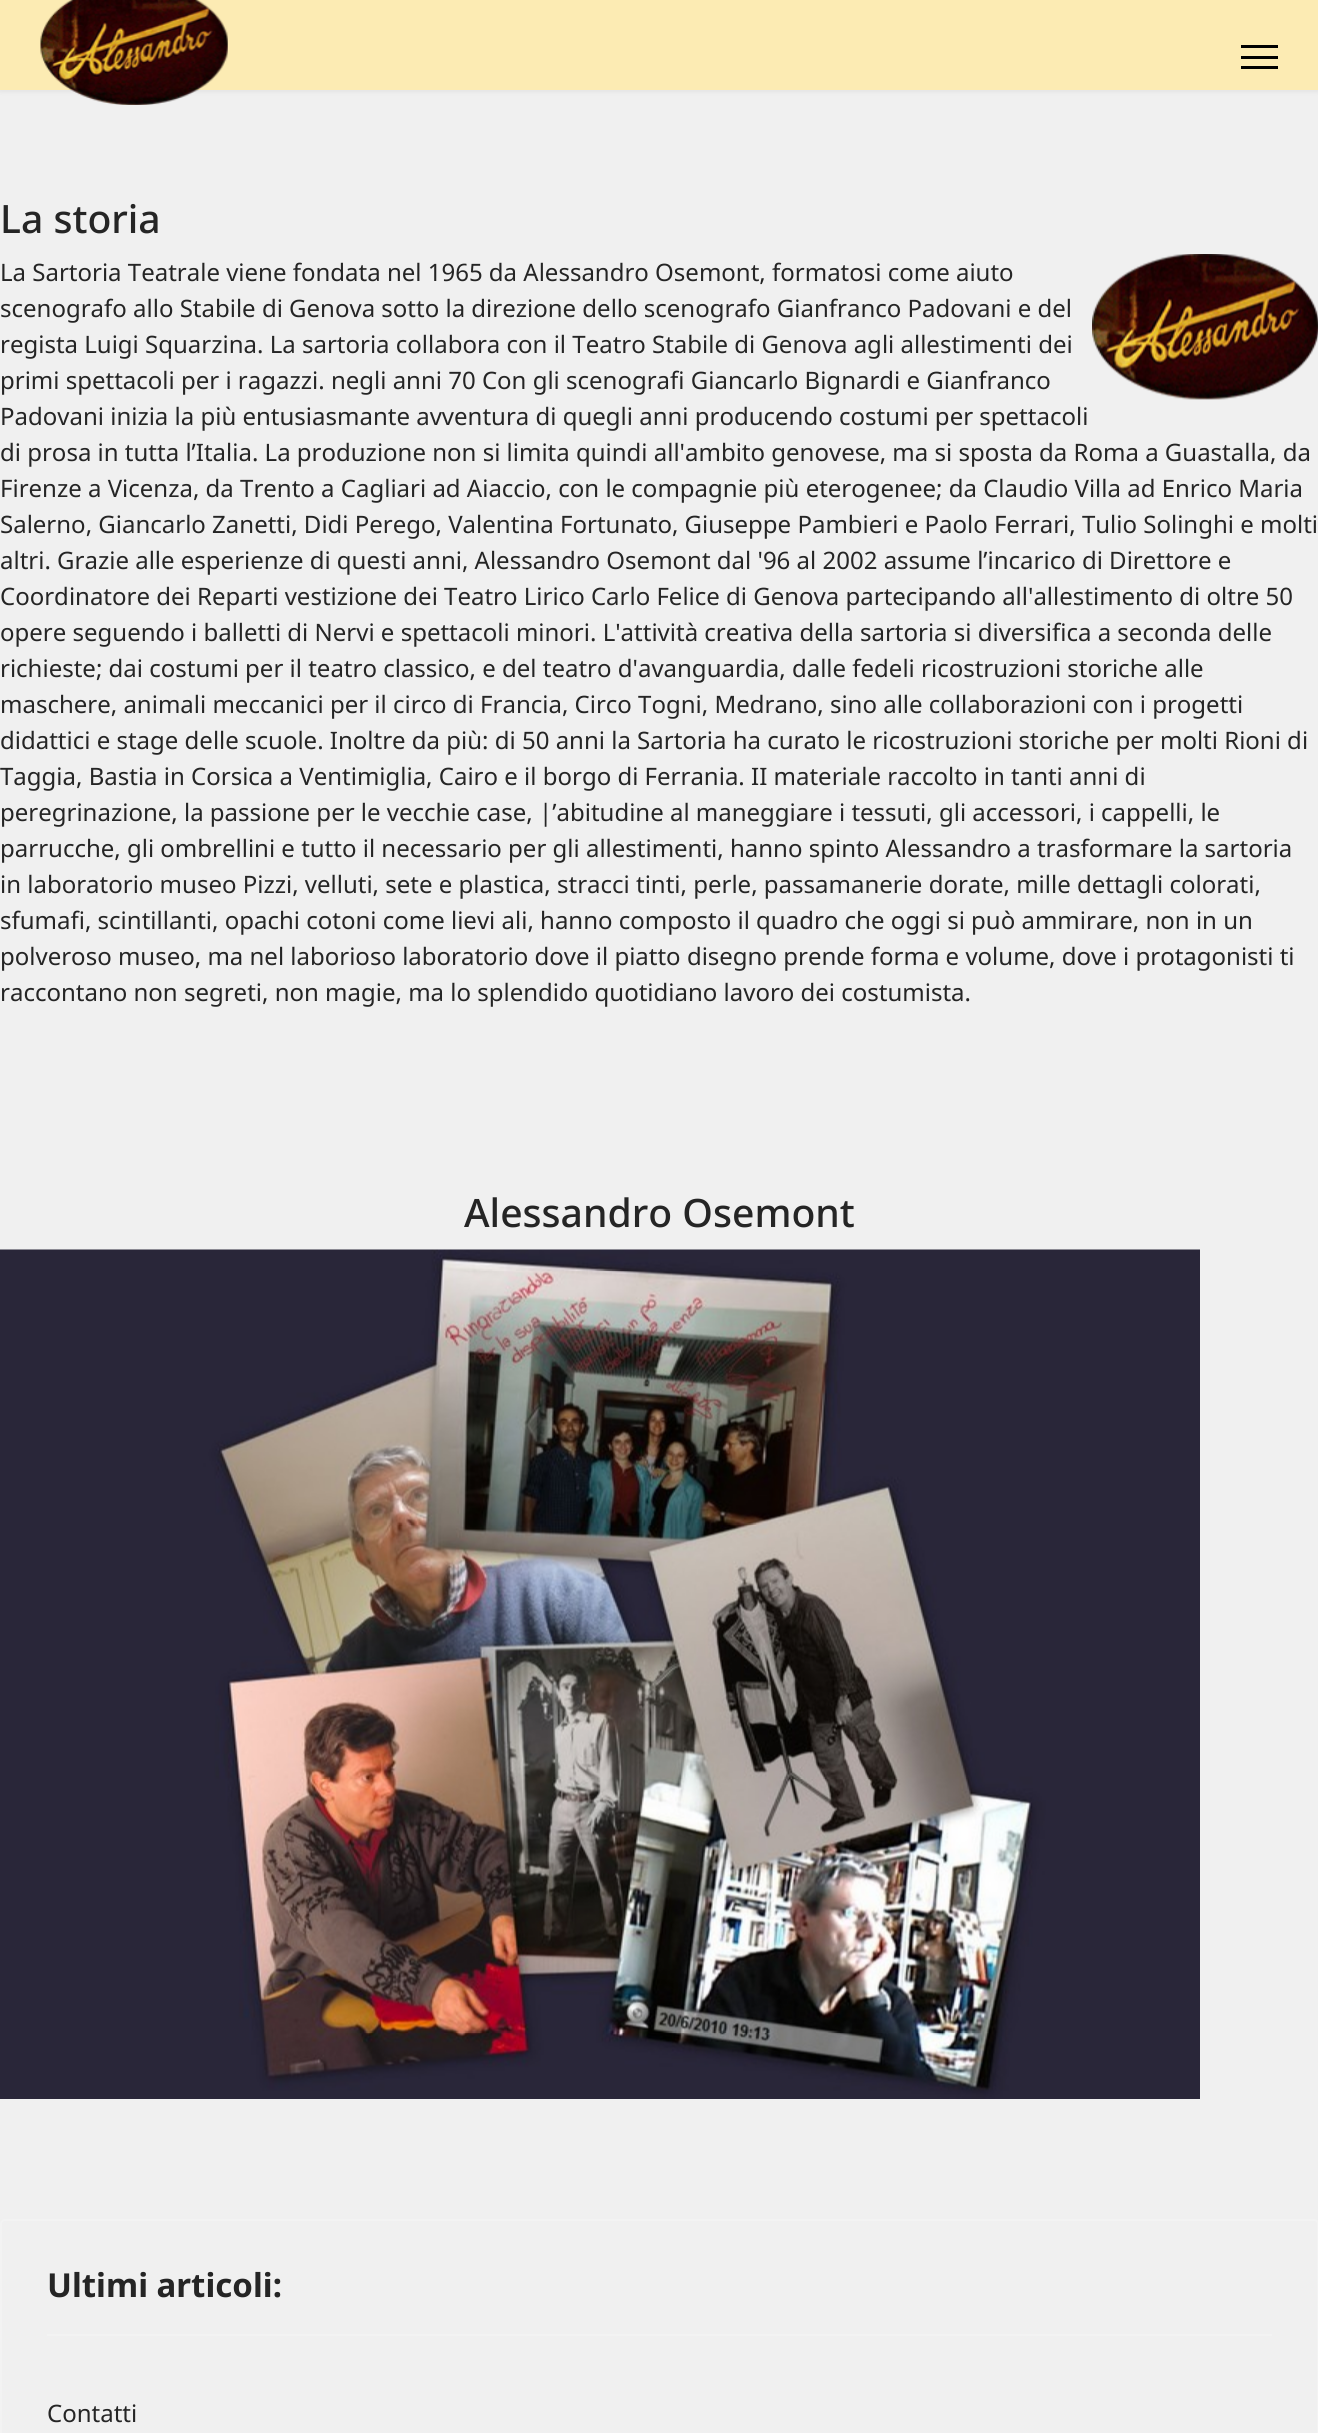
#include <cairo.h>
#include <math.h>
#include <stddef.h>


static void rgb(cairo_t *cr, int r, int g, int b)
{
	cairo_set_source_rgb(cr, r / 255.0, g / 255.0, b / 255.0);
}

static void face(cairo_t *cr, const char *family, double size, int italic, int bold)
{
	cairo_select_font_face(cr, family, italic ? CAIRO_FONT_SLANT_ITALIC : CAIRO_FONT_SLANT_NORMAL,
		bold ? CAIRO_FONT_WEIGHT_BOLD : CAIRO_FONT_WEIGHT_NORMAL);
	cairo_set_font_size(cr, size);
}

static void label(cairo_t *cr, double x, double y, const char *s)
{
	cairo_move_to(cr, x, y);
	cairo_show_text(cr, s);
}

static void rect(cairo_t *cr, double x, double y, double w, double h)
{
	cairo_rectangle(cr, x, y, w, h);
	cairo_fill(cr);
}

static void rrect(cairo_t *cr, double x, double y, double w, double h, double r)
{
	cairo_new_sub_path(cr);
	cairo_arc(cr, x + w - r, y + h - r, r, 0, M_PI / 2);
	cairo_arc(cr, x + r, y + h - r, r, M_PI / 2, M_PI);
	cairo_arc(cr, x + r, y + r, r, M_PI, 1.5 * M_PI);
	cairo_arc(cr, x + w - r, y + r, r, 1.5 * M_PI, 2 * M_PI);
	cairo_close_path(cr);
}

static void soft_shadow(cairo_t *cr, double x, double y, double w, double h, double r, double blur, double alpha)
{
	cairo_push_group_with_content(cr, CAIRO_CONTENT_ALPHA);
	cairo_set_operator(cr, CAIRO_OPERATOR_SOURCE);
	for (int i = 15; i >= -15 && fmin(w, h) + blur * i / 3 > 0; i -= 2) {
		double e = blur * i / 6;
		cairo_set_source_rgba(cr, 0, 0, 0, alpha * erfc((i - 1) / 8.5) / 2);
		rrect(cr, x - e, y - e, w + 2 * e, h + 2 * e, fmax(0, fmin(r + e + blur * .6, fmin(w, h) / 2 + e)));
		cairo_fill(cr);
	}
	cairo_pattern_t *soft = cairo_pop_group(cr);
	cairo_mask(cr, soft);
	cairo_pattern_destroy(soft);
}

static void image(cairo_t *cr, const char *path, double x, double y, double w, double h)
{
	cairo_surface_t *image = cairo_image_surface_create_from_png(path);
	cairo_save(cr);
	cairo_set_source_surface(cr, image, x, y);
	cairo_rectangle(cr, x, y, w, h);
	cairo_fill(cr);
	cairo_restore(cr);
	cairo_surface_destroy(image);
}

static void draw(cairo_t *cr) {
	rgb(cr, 240, 240, 240);
	cairo_paint(cr);
	rgb(cr, 0, 0, 0);
	soft_shadow(cr, 0, 0, 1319, 90, 0, 3, 0.1);
	rgb(cr, 252, 235, 179);
	rect(cr, 0, 0, 1318, 90);
	image(cr, "image0.png", 40, 0, 188, 105);
	rgb(cr, 0, 0, 0);
	rect(cr, 1241, 45, 37, 3);
	rect(cr, 1241, 56, 37, 3);
	rect(cr, 1241, 66, 37, 3);
	face(cr, "Noto Sans Medium", 39.1, 0, 0);
	rgb(cr, 37, 37, 37);
	label(cr, 0, 233, "La storia");
	face(cr, "Noto Sans", 24, 0, 0);
	label(cr, 0, 281, "La Sartoria Teatrale viene fondata nel 1965 da Alessandro Osemont, formatosi come aiuto");
	image(cr, "image1.png", 1092, 254, 226, 146);
	label(cr, 0, 317, "scenografo allo Stabile di Genova sotto la direzione dello scenografo Gianfranco Padovani e del");
	label(cr, 0, 353, "regista Luigi Squarzina. La sartoria collabora con il Teatro Stabile di Genova agli allestimenti dei");
	label(cr, 0, 389, "primi spettacoli per i ragazzi. negli anni 70 Con gli scenografi Giancarlo Bignardi e Gianfranco");
	label(cr, 0, 425, "Padovani inizia la più entusiasmante avventura di quegli anni producendo costumi per spettacoli");
	label(cr, 0, 461, "di prosa in tutta l’Italia. La produzione non si limita quindi all'ambito genovese, ma si sposta da Roma a Guastalla, da");
	label(cr, 0, 497, "Firenze a Vicenza, da Trento a Cagliari ad Aiaccio, con le compagnie più eterogenee; da Claudio Villa ad Enrico Maria");
	label(cr, 0, 533, "Salerno, Giancarlo Zanetti, Didi Perego, Valentina Fortunato, Giuseppe Pambieri e Paolo Ferrari, Tulio Solinghi e molti");
	label(cr, 0, 569, "altri. Grazie alle esperienze di questi anni, Alessandro Osemont dal '96 al 2002 assume l’incarico di Direttore e");
	label(cr, 0, 605, "Coordinatore dei Reparti vestizione dei Teatro Lirico Carlo Felice di Genova partecipando all'allestimento di oltre 50");
	label(cr, 0, 641, "opere seguendo i balletti di Nervi e spettacoli minori. L'attività creativa della sartoria si diversifica a seconda delle");
	label(cr, 0, 677, "richieste; dai costumi per il teatro classico, e del teatro d'avanguardia, dalle fedeli ricostruzioni storiche alle");
	label(cr, 0, 713, "maschere, animali meccanici per il circo di Francia, Circo Togni, Medrano, sino alle collaborazioni con i progetti");
	label(cr, 0, 749, "didattici e stage delle scuole. Inoltre da più: di 50 anni la Sartoria ha curato le ricostruzioni storiche per molti Rioni di");
	label(cr, 0, 785, "Taggia, Bastia in Corsica a Ventimiglia, Cairo e il borgo di Ferrania. II materiale raccolto in tanti anni di");
	label(cr, 0, 821, "peregrinazione, la passione per le vecchie case, |’abitudine al maneggiare i tessuti, gli accessori, i cappelli, le");
	label(cr, 0, 857, "parrucche, gli ombrellini e tutto il necessario per gli allestimenti, hanno spinto Alessandro a trasformare la sartoria");
	label(cr, 0, 893, "in laboratorio museo Pizzi, velluti, sete e plastica, stracci tinti, perle, passamanerie dorate, mille dettagli colorati,");
	label(cr, 0, 929, "sfumafi, scintillanti, opachi cotoni come lievi ali, hanno composto il quadro che oggi si può ammirare, non in un");
	label(cr, 0, 965, "polveroso museo, ma nel laborioso laboratorio dove il piatto disegno prende forma e volume, dove i protagonisti ti");
	label(cr, 0, 1001, "raccontano non segreti, non magie, ma lo splendido quotidiano lavoro dei costumista.");
	face(cr, "Noto Sans Medium", 39.1, 0, 0);
	label(cr, 464, 1227, "Alessandro Osemont");
	image(cr, "image2.png", 0, 1249, 1200, 850);
	rrect(cr, 1, 2220, 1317, 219, 4);
	rgb(cr, 243, 243, 243);
	cairo_stroke(cr);
	rect(cr, 47, 2334, 1225, 2);
	face(cr, "Noto Sans", 33, 0, 1);
	rgb(cr, 37, 37, 37);
	label(cr, 47, 2297, "Ultimi articoli:");
	face(cr, "Noto Sans", 24, 0, 0);
	label(cr, 47, 2422, "Contatti");
}

int main(void) {
	cairo_surface_t *surface = cairo_image_surface_create(CAIRO_FORMAT_RGB24, 1318, 2433);
	cairo_t *cr = cairo_create(surface);
	cairo_font_options_t *options = cairo_font_options_create();
	cairo_font_options_set_hint_metrics(options, CAIRO_HINT_METRICS_OFF);
	cairo_font_options_set_hint_style(options, CAIRO_HINT_STYLE_NONE);
	cairo_set_font_options(cr, options);
	cairo_set_miter_limit(cr, 4);
	draw(cr);
	cairo_surface_write_to_png(surface, "render.png");
	cairo_font_options_destroy(options);
	cairo_destroy(cr);
	cairo_surface_destroy(surface);
	return 0;
}
